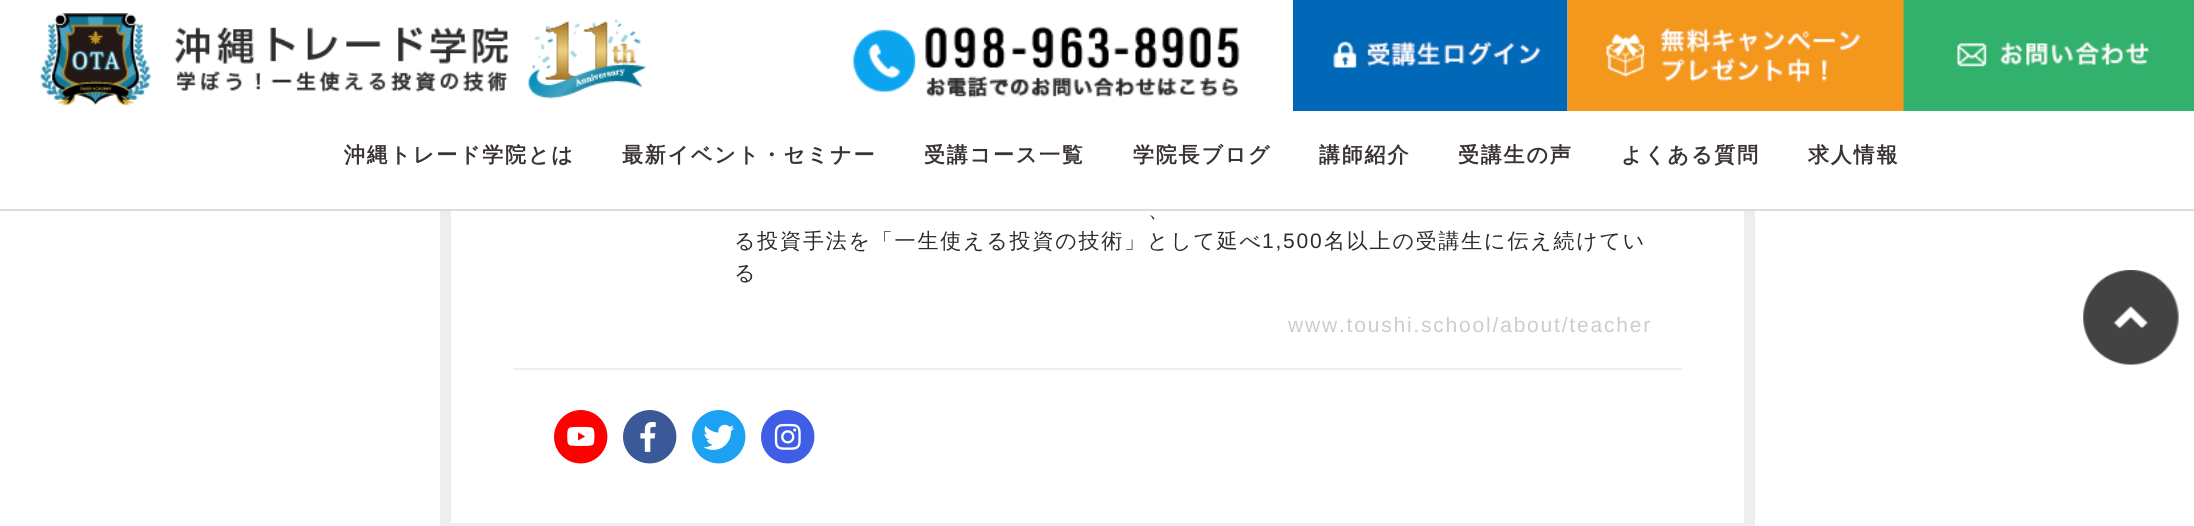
#include <cairo.h>
#include <math.h>
#include <stddef.h>


static void rgb(cairo_t *cr, int r, int g, int b)
{
	cairo_set_source_rgb(cr, r / 255.0, g / 255.0, b / 255.0);
}

static void face(cairo_t *cr, const char *family, double size, int italic, int bold)
{
	cairo_select_font_face(cr, family, italic ? CAIRO_FONT_SLANT_ITALIC : CAIRO_FONT_SLANT_NORMAL,
		bold ? CAIRO_FONT_WEIGHT_BOLD : CAIRO_FONT_WEIGHT_NORMAL);
	cairo_set_font_size(cr, size);
}

static void tracked(cairo_t *cr, double x, double y, const char *s, double letter, double word)
{
	cairo_move_to(cr, x, y);
	while (*s) {
		char ch[5] = {0};
		int n = 0;
		do ch[n++] = *s++; while ((*s & 0xC0) == 0x80);
		cairo_show_text(cr, ch);
		cairo_rel_move_to(cr, letter + word * (*ch == ' '), 0);
	}
}

static void rect(cairo_t *cr, double x, double y, double w, double h)
{
	cairo_rectangle(cr, x, y, w, h);
	cairo_fill(cr);
}

static void image(cairo_t *cr, const char *path, double x, double y, double w, double h)
{
	cairo_surface_t *image = cairo_image_surface_create_from_png(path);
	cairo_save(cr);
	cairo_set_source_surface(cr, image, x, y);
	cairo_rectangle(cr, x, y, w, h);
	cairo_fill(cr);
	cairo_restore(cr);
	cairo_surface_destroy(image);
}

static void draw(cairo_t *cr) {
	rgb(cr, 255, 255, 255);
	cairo_paint(cr);
	cairo_rectangle(cr, 445.5, -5.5, 1304, 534);
	rgb(cr, 238, 238, 238);
	cairo_set_line_width(cr, 11);
	cairo_stroke(cr);
	rgb(cr, 255, 255, 255);
	rect(cr, 440, 0, 1315, 209);
	rgb(cr, 219, 219, 219);
	rect(cr, 0, 209, 2194, 2);
	image(cr, "image0.png", 40, 13, 606, 93);
	image(cr, "image1.png", 853, 26, 387, 72);
	image(cr, "image2.png", 1293, 0, 275, 111);
	image(cr, "image3.png", 1567, 0, 338, 111);
	image(cr, "image4.png", 1905, 0, 289, 111);
	face(cr, "WenQuanYi Zen Hei", 21, 0, 1);
	rgb(cr, 57, 51, 51);
	tracked(cr, 344, 162, "沖縄トレード学院とは", 1.8, 0);
	tracked(cr, 622, 162, "最新イベント・セミナー", 1.8, 0);
	tracked(cr, 924, 162, "受講コース一覧", 1.8, 0);
	tracked(cr, 1133, 162, "学院長ブログ", 1.8, 0);
	tracked(cr, 1319, 162, "講師紹介", 1.8, 0);
	tracked(cr, 1458, 162, "受講生の声", 1.8, 0);
	tracked(cr, 1621, 162, "よくある質問", 1.8, 0);
	tracked(cr, 1808, 162, "求人情報", 1.8, 0);
	face(cr, "WenQuanYi Zen Hei Medium", 21, 0, 0);
	rgb(cr, 44, 44, 44);
	tracked(cr, 1148, 217, "、", 1.8, 0);
	tracked(cr, 734, 248, "る投資手法を「一生使える投資の技術」として延べ", 1.8, 0);
	face(cr, "Liberation Sans", 21, 0, 0);
	tracked(cr, 1262, 248, "1,500", 1.8, 0);
	face(cr, "WenQuanYi Zen Hei Medium", 21, 0, 0);
	tracked(cr, 1324, 248, "名以上の受講生に伝え続けてい", 1.8, 0);
	tracked(cr, 734, 280, "る", 1.8, 0);
	face(cr, "Liberation Sans", 21, 0, 0);
	rgb(cr, 204, 204, 204);
	tracked(cr, 1288, 332, "www.toushi.school/about/teacher", 1.8, 0);
	rgb(cr, 238, 238, 238);
	rect(cr, 513, 368, 1169, 2);
	image(cr, "image5.png", 554, 410, 54, 54);
	image(cr, "image6.png", 623, 410, 54, 54);
	image(cr, "image7.png", 692, 410, 54, 54);
	image(cr, "image8.png", 761, 410, 54, 54);
	image(cr, "image9.png", 2083, 270, 96, 95);
}

int main(void) {
	cairo_surface_t *surface = cairo_image_surface_create(CAIRO_FORMAT_RGB24, 2194, 526);
	cairo_t *cr = cairo_create(surface);
	cairo_font_options_t *options = cairo_font_options_create();
	cairo_font_options_set_hint_metrics(options, CAIRO_HINT_METRICS_OFF);
	cairo_font_options_set_hint_style(options, CAIRO_HINT_STYLE_NONE);
	cairo_set_font_options(cr, options);
	cairo_set_miter_limit(cr, 4);
	draw(cr);
	cairo_surface_write_to_png(surface, "render.png");
	cairo_font_options_destroy(options);
	cairo_destroy(cr);
	cairo_surface_destroy(surface);
	return 0;
}
